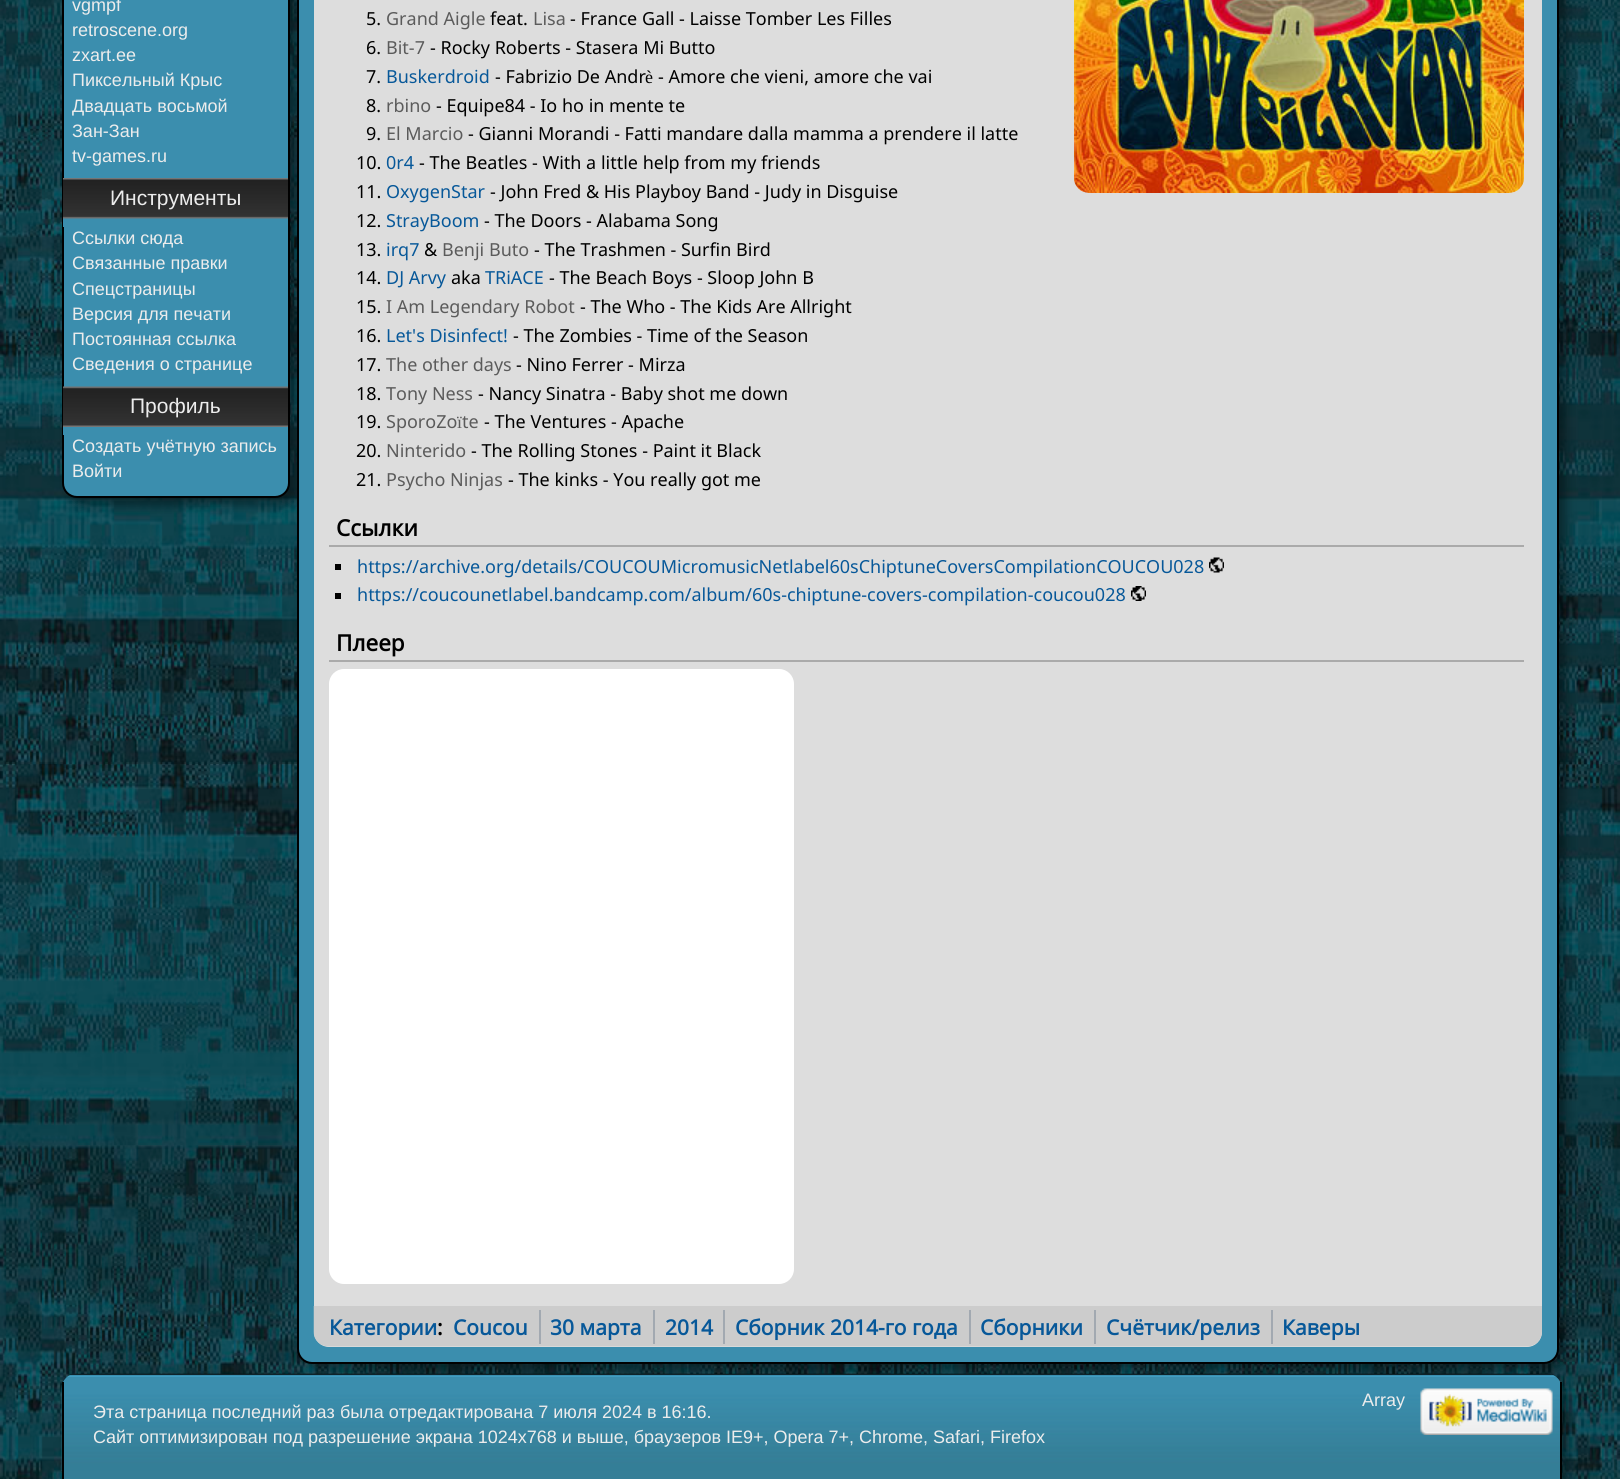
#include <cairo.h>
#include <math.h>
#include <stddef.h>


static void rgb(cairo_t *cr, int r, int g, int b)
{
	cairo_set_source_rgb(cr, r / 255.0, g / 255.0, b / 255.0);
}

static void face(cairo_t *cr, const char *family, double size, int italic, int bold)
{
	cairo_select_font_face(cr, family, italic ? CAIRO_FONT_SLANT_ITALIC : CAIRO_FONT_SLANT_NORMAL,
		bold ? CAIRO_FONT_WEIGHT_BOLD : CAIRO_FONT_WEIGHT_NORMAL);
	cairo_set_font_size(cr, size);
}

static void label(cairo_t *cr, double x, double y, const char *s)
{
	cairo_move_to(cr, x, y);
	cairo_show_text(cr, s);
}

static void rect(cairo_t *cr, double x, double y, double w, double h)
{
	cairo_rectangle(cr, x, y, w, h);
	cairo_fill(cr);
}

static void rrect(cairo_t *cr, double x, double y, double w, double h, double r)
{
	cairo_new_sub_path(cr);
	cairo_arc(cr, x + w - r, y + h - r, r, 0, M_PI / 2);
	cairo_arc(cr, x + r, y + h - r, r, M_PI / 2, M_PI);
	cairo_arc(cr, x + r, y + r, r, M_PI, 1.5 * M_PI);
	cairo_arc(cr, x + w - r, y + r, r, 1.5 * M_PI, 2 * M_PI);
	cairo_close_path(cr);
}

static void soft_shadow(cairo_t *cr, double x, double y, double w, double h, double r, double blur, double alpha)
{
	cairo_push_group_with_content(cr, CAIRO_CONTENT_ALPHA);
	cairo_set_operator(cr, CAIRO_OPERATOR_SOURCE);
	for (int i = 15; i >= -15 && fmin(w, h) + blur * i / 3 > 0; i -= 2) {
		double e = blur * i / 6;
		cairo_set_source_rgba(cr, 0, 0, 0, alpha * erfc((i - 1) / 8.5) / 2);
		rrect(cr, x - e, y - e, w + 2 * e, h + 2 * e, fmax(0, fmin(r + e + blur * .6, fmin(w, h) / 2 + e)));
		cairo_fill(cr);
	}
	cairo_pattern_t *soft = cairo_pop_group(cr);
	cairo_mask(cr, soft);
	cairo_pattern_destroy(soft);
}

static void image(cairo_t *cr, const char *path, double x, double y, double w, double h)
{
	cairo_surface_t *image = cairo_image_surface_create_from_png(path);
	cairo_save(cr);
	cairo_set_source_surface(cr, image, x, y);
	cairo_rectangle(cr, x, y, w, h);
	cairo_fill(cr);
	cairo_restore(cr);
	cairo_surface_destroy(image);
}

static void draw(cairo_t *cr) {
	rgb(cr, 255, 255, 255);
	cairo_paint(cr);
	image(cr, "image0.png", 0, 0, 1620, 1479);
	rgb(cr, 0, 0, 0);
	soft_shadow(cr, 69, -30, 228, 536, 15, 5, 0.4);
	rgb(cr, 59, 142, 174);
	rrect(cr, 63, -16, 226, 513, 14);
	cairo_fill_preserve(cr);
	rgb(cr, 0, 0, 0);
	cairo_stroke(cr);
	face(cr, "Liberation Sans", 18, 0, 0);
	rgb(cr, 236, 236, 236);
	label(cr, 72, 11, "vgmpf");
	label(cr, 72, 36, "retroscene.org");
	label(cr, 72, 61, "zxart.ee");
	label(cr, 72, 86, "Пиксельный Крыс");
	label(cr, 72, 112, "Двадцать восьмой");
	label(cr, 72, 137, "Зан-Зан");
	label(cr, 72, 162, "tv-games.ru");
	rgb(cr, 59, 142, 174);
	rect(cr, 63, 218, 1, 9);
	image(cr, "image1.png", 63, 178, 225, 41);
	face(cr, "Liberation Sans", 21, 0, 0);
	rgb(cr, 236, 236, 236);
	label(cr, 110, 205, "Инструменты");
	face(cr, "Liberation Sans", 18, 0, 0);
	label(cr, 72, 244, "Ссылки сюда");
	label(cr, 72, 269, "Связанные правки");
	label(cr, 72, 295, "Спецстраницы");
	label(cr, 72, 320, "Версия для печати");
	label(cr, 72, 345, "Постоянная ссылка");
	label(cr, 72, 370, "Сведения о странице");
	rgb(cr, 59, 142, 174);
	rect(cr, 63, 427, 1, 8);
	image(cr, "image2.png", 63, 386, 225, 41);
	face(cr, "Liberation Sans", 21, 0, 0);
	rgb(cr, 236, 236, 236);
	label(cr, 130, 413, "Профиль");
	face(cr, "Liberation Sans", 18, 0, 0);
	label(cr, 72, 452, "Создать учётную запись");
	label(cr, 72, 477, "Войти");
	rgb(cr, 0, 0, 0);
	soft_shadow(cr, 305, -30, 1261, 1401, 15, 5, 0.4);
	rgb(cr, 59, 142, 174);
	rrect(cr, 298, -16, 1260, 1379, 14);
	cairo_fill_preserve(cr);
	rgb(cr, 0, 0, 0);
	cairo_stroke(cr);
	rgb(cr, 221, 221, 221);
	rrect(cr, 314, -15, 1228, 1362, 15);
	cairo_fill(cr);
	face(cr, "Noto Sans", 18, 0, 0);
	rgb(cr, 0, 0, 0);
	label(cr, 366, 25, "5.");
	rgb(cr, 91, 91, 91);
	label(cr, 386, 25, "Grand Aigle");
	rgb(cr, 0, 0, 0);
	label(cr, 490, 25, "feat.");
	rgb(cr, 91, 91, 91);
	label(cr, 533, 25, "Lisa");
	rgb(cr, 0, 0, 0);
	label(cr, 570, 25, "- France Gall - Laisse Tomber Les Filles");
	label(cr, 366, 54, "6.");
	rgb(cr, 91, 91, 91);
	label(cr, 386, 54, "Bit-7");
	rgb(cr, 0, 0, 0);
	label(cr, 430, 54, "- Rocky Roberts - Stasera Mi Butto");
	label(cr, 366, 83, "7.");
	rgb(cr, 7, 88, 153);
	label(cr, 386, 83, "Buskerdroid");
	rgb(cr, 0, 0, 0);
	label(cr, 495, 83, "- Fabrizio De Andr");
	face(cr, "Liberation Serif", 18, 0, 0);
	label(cr, 645, 83, "è");
	face(cr, "Noto Sans", 18, 0, 0);
	label(cr, 658, 83, "- Amore che vieni, amore che vai");
	label(cr, 366, 112, "8.");
	rgb(cr, 91, 91, 91);
	label(cr, 386, 112, "rbino");
	rgb(cr, 0, 0, 0);
	label(cr, 436, 112, "- Equipe84 - Io ho in mente te");
	label(cr, 366, 140, "9.");
	rgb(cr, 91, 91, 91);
	label(cr, 386, 140, "El Marcio");
	rgb(cr, 0, 0, 0);
	label(cr, 468, 140, "- Gianni Morandi - Fatti mandare dalla mamma a prendere il latte");
	label(cr, 356, 169, "10.");
	rgb(cr, 7, 88, 153);
	label(cr, 386, 169, "0r4");
	rgb(cr, 0, 0, 0);
	label(cr, 419, 169, "- The Beatles - With a little help from my friends");
	label(cr, 356, 198, "11.");
	rgb(cr, 7, 88, 153);
	label(cr, 386, 198, "OxygenStar");
	rgb(cr, 0, 0, 0);
	label(cr, 490, 198, "- John Fred & His Playboy Band - Judy in Disguise");
	label(cr, 356, 227, "12.");
	rgb(cr, 7, 88, 153);
	label(cr, 386, 227, "StrayBoom");
	rgb(cr, 0, 0, 0);
	label(cr, 484, 227, "- The Doors - Alabama Song");
	label(cr, 356, 256, "13.");
	rgb(cr, 7, 88, 153);
	label(cr, 386, 256, "irq7");
	rgb(cr, 0, 0, 0);
	label(cr, 424, 256, "&");
	rgb(cr, 91, 91, 91);
	label(cr, 442, 256, "Benji Buto");
	rgb(cr, 0, 0, 0);
	label(cr, 534, 256, "- The Trashmen - Surfin Bird");
	label(cr, 356, 284, "14.");
	rgb(cr, 7, 88, 153);
	label(cr, 386, 284, "DJ Arvy");
	rgb(cr, 0, 0, 0);
	label(cr, 451, 284, "aka");
	rgb(cr, 7, 88, 153);
	label(cr, 485, 284, "TRiACE");
	rgb(cr, 0, 0, 0);
	label(cr, 549, 284, "- The Beach Boys - Sloop John B");
	label(cr, 356, 313, "15.");
	rgb(cr, 91, 91, 91);
	label(cr, 386, 313, "I Am Legendary Robot");
	rgb(cr, 0, 0, 0);
	label(cr, 580, 313, "- The Who - The Kids Are Allright");
	label(cr, 356, 342, "16.");
	rgb(cr, 7, 88, 153);
	label(cr, 386, 342, "Let's Disinfect!");
	rgb(cr, 0, 0, 0);
	label(cr, 513, 342, "- The Zombies - Time of the Season");
	label(cr, 356, 371, "17.");
	rgb(cr, 91, 91, 91);
	label(cr, 386, 371, "The other days");
	rgb(cr, 0, 0, 0);
	label(cr, 516, 371, "- Nino Ferrer - Mirza");
	label(cr, 356, 400, "18.");
	rgb(cr, 91, 91, 91);
	label(cr, 386, 400, "Tony Ness");
	rgb(cr, 0, 0, 0);
	label(cr, 478, 400, "- Nancy Sinatra - Baby shot me down");
	label(cr, 356, 428, "19.");
	rgb(cr, 91, 91, 91);
	label(cr, 386, 428, "SporoZo");
	face(cr, "Liberation Serif", 18, 0, 0);
	label(cr, 457, 428, "ï");
	face(cr, "Noto Sans", 18, 0, 0);
	label(cr, 462, 428, "te");
	rgb(cr, 0, 0, 0);
	label(cr, 484, 428, "- The Ventures - Apache");
	label(cr, 356, 457, "20.");
	rgb(cr, 91, 91, 91);
	label(cr, 386, 457, "Ninterido");
	rgb(cr, 0, 0, 0);
	label(cr, 471, 457, "- The Rolling Stones - Paint it Black");
	label(cr, 356, 486, "21.");
	rgb(cr, 91, 91, 91);
	label(cr, 386, 486, "Psycho Ninjas");
	rgb(cr, 0, 0, 0);
	label(cr, 508, 486, "- The kinks - You really got me");
	image(cr, "image3.png", 1074, 0, 450, 193);
	rgb(cr, 170, 170, 170);
	rect(cr, 329, 545, 1195, 2);
	face(cr, "Noto Sans", 22.5, 0, 1);
	rgb(cr, 0, 0, 0);
	label(cr, 336, 536, "Ссылки");
	rect(cr, 335, 564, 6, 6);
	face(cr, "Noto Sans", 18, 0, 0);
	rgb(cr, 7, 88, 153);
	label(cr, 357, 573, "https://archive.org/details/COUCOUMicromusicNetlabel60sChiptuneCoversCompilationCOUCOU028");
	image(cr, "image4.png", 1209, 557, 15, 16);
	rgb(cr, 0, 0, 0);
	rect(cr, 335, 593, 6, 6);
	rgb(cr, 7, 88, 153);
	label(cr, 357, 601, "https://coucounetlabel.bandcamp.com/album/60s-chiptune-covers-compilation-coucou028");
	image(cr, "image5.png", 1131, 586, 15, 15);
	rgb(cr, 170, 170, 170);
	rect(cr, 329, 660, 1195, 2);
	face(cr, "Noto Sans", 22.5, 0, 1);
	rgb(cr, 0, 0, 0);
	label(cr, 336, 651, "Плеер");
	rgb(cr, 255, 255, 255);
	rrect(cr, 329, 669, 465, 615, 15);
	cairo_fill(cr);
	image(cr, "image6.png", 313, 1306, 1229, 41);
	face(cr, "Noto Sans", 21, 0, 1);
	rgb(cr, 7, 88, 153);
	label(cr, 329, 1335, "Категории");
	rgb(cr, 0, 0, 0);
	label(cr, 437, 1335, ":");
	rgb(cr, 7, 88, 153);
	label(cr, 453, 1335, "Coucou");
	rgb(cr, 162, 169, 177);
	rect(cr, 539, 1310, 2, 34);
	rgb(cr, 7, 88, 153);
	label(cr, 550, 1335, "30 марта");
	rgb(cr, 162, 169, 177);
	rect(cr, 653, 1310, 2, 34);
	rgb(cr, 7, 88, 153);
	label(cr, 665, 1335, "2014");
	rgb(cr, 162, 169, 177);
	rect(cr, 723, 1310, 2, 34);
	rgb(cr, 7, 88, 153);
	label(cr, 735, 1335, "Сборник 2014-го года");
	rgb(cr, 162, 169, 177);
	rect(cr, 969, 1310, 2, 34);
	rgb(cr, 7, 88, 153);
	label(cr, 980, 1335, "Сборники");
	rgb(cr, 162, 169, 177);
	rect(cr, 1094, 1310, 2, 34);
	rgb(cr, 7, 88, 153);
	label(cr, 1106, 1335, "Счётчик/релиз");
	rgb(cr, 162, 169, 177);
	rect(cr, 1271, 1310, 2, 34);
	rgb(cr, 7, 88, 153);
	label(cr, 1282, 1335, "Каверы");
	rgb(cr, 0, 0, 0);
	soft_shadow(cr, 69, 1382, 1500, 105, 15, 5, 0.4);
	rgb(cr, 53, 126, 151);
	cairo_new_path(cr);
	cairo_move_to(cr, 77, 1374);
	cairo_line_to(cr, 1547, 1374);
	cairo_curve_to(cr, 1555.5, 1374, 1562, 1380.5, 1562, 1389);
	cairo_line_to(cr, 1562, 1479);
	cairo_line_to(cr, 62, 1479);
	cairo_line_to(cr, 62, 1389);
	cairo_curve_to(cr, 62, 1380.5, 68.5, 1374, 77, 1374);
	cairo_close_path(cr);
	cairo_fill(cr);
	image(cr, "image7.png", 61, 1373, 1499, 98);
	rgb(cr, 0, 0, 0);
	rect(cr, 1560, 1382, 2, 97);
	rect(cr, 62, 1382, 2, 97);
	face(cr, "Liberation Sans", 18, 0, 0);
	rgb(cr, 236, 236, 236);
	label(cr, 1362, 1406, "Array");
	image(cr, "image8.png", 1420, 1388, 133, 47);
	label(cr, 93, 1418, "Эта страница последний раз была отредактирована 7 июля 2024 в 16:16.");
	label(cr, 93, 1443, "Сайт оптимизирован под разрешение экрана 1024x768 и выше, браузеров IE9+, Opera 7+, Chrome, Safari, Firefox");
}

int main(void) {
	cairo_surface_t *surface = cairo_image_surface_create(CAIRO_FORMAT_RGB24, 1620, 1479);
	cairo_t *cr = cairo_create(surface);
	cairo_font_options_t *options = cairo_font_options_create();
	cairo_font_options_set_hint_metrics(options, CAIRO_HINT_METRICS_OFF);
	cairo_font_options_set_hint_style(options, CAIRO_HINT_STYLE_NONE);
	cairo_set_font_options(cr, options);
	cairo_set_miter_limit(cr, 4);
	draw(cr);
	cairo_surface_write_to_png(surface, "render.png");
	cairo_font_options_destroy(options);
	cairo_destroy(cr);
	cairo_surface_destroy(surface);
	return 0;
}
